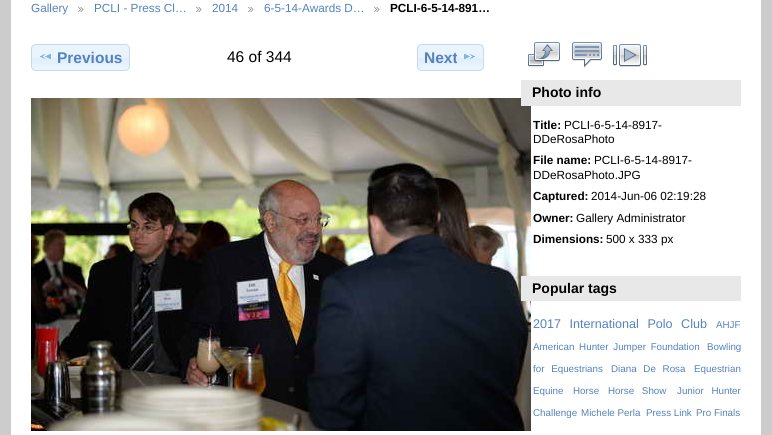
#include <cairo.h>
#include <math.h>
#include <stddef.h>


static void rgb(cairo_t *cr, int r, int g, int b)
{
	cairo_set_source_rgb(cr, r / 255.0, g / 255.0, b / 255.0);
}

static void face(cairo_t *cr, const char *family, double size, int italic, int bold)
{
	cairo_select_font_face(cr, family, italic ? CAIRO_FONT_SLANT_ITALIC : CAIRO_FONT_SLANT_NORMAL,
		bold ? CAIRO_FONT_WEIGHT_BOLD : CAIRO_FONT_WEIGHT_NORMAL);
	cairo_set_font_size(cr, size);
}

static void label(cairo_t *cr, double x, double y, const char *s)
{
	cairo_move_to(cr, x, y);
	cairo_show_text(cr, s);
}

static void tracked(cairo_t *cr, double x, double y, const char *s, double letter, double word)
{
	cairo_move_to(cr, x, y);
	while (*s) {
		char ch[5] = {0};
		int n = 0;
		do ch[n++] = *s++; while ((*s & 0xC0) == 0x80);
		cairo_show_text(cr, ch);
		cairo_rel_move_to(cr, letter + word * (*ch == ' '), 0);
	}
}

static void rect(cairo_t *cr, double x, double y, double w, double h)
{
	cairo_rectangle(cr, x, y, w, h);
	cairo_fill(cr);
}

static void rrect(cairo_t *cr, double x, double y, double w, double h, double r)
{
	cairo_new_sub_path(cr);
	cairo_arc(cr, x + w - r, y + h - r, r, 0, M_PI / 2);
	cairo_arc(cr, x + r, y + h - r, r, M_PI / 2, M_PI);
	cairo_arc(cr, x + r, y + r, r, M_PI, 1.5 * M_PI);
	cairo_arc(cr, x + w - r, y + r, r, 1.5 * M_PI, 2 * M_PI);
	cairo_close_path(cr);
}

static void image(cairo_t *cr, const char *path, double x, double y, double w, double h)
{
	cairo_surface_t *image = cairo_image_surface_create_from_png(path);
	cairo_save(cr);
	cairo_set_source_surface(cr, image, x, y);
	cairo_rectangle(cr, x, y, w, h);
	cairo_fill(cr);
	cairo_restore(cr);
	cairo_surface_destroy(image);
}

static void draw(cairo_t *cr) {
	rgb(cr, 204, 204, 204);
	cairo_paint(cr);
	rgb(cr, 255, 255, 255);
	rect(cr, 11, 0, 750, 435);
	face(cr, "Liberation Sans", 11.75, 0, 0);
	rgb(cr, 83, 130, 191);
	label(cr, 31, 12, "Gallery");
	image(cr, "image0.png", 78, 7, 6, 5);
	label(cr, 94, 12, "PCLI - Press Cl…");
	image(cr, "image0.png", 196, 7, 6, 5);
	label(cr, 212, 12, "2014");
	image(cr, "image0.png", 248, 7, 6, 5);
	label(cr, 264, 12, "6-5-14-Awards D…");
	image(cr, "image0.png", 374, 7, 6, 5);
	face(cr, "Liberation Sans", 11.75, 0, 1);
	rgb(cr, 0, 0, 0);
	label(cr, 390, 12, "PCLI-6-5-14-891…");
	image(cr, "image1.png", 31, 44, 99, 27);
	rrect(cr, 31.5, 44.5, 98, 26, 4.5);
	rgb(cr, 197, 219, 236);
	cairo_set_line_width(cr, 1);
	cairo_stroke(cr);
	image(cr, "image2.png", 40, 54, 11, 5);
	face(cr, "Liberation Sans", 15.5, 0, 1);
	rgb(cr, 83, 130, 191);
	label(cr, 57, 63, "Previous");
	face(cr, "Liberation Sans", 15.5, 0, 0);
	rgb(cr, 0, 0, 0);
	label(cr, 227, 62, "46 of 344");
	image(cr, "image3.png", 417, 44, 67, 27);
	rrect(cr, 417.5, 44.5, 66, 26, 4.5);
	rgb(cr, 197, 219, 236);
	cairo_stroke(cr);
	face(cr, "Liberation Sans", 15.5, 0, 1);
	rgb(cr, 83, 130, 191);
	label(cr, 424, 63, "Next");
	image(cr, "image4.png", 464, 54, 11, 5);
	image(cr, "image5.png", 31, 98, 500, 333);
	image(cr, "image6.png", 528, 42, 32, 25);
	image(cr, "image7.png", 572, 42, 30, 26);
	image(cr, "image8.png", 613, 44, 34, 23);
	rgb(cr, 232, 232, 232);
	rect(cr, 521, 80, 220, 26);
	face(cr, "Liberation Sans", 14, 0, 1);
	rgb(cr, 0, 0, 0);
	label(cr, 532, 97, "Photo info");
	face(cr, "Liberation Sans", 11.75, 0, 1);
	label(cr, 533, 129, "Title:");
	face(cr, "Liberation Sans", 11.75, 0, 0);
	label(cr, 564, 129, "PCLI-6-5-14-8917-");
	label(cr, 533, 143, "DDeRosaPhoto");
	face(cr, "Liberation Sans", 11.75, 0, 1);
	label(cr, 533, 164, "File name:");
	face(cr, "Liberation Sans", 11.75, 0, 0);
	label(cr, 594, 164, "PCLI-6-5-14-8917-");
	label(cr, 533, 179, "DDeRosaPhoto.JPG");
	face(cr, "Liberation Sans", 11.75, 0, 1);
	label(cr, 533, 200, "Captured:");
	face(cr, "Liberation Sans", 11.75, 0, 0);
	label(cr, 591, 200, "2014-Jun-06 02:19:28");
	face(cr, "Liberation Sans", 11.75, 0, 1);
	label(cr, 533, 222, "Owner:");
	face(cr, "Liberation Sans", 11.75, 0, 0);
	label(cr, 576, 222, "Gallery Administrator");
	face(cr, "Liberation Sans", 11.75, 0, 1);
	label(cr, 533, 243, "Dimensions:");
	face(cr, "Liberation Sans", 11.75, 0, 0);
	label(cr, 606, 243, "500 x 333 px");
	rgb(cr, 232, 232, 232);
	rect(cr, 521, 276, 220, 25);
	face(cr, "Liberation Sans", 14, 0, 1);
	rgb(cr, 0, 0, 0);
	label(cr, 532, 293, "Popular tags");
	face(cr, "Liberation Sans", 12.6, 0, 0);
	rgb(cr, 83, 130, 191);
	tracked(cr, 533, 328, "2017 International Polo Club", 0, 5);
	face(cr, "Liberation Sans", 9.8, 0, 0);
	label(cr, 716, 328, "AHJF");
	tracked(cr, 533, 350, "American Hunter Jumper Foundation", 0, 2);
	label(cr, 707, 350, "Bowling");
	tracked(cr, 533, 372, "for Equestrians", 0, 4);
	tracked(cr, 611, 372, "Diana De Rosa", 0, 4);
	label(cr, 694, 372, "Equestrian");
	label(cr, 533, 394, "Equine");
	label(cr, 573, 394, "Horse");
	tracked(cr, 608, 394, "Horse Show", 0, 5);
	tracked(cr, 677, 394, "Junior Hunter", 0, 5);
	label(cr, 533, 416, "Challenge");
	label(cr, 581, 416, "Michele Perla");
	label(cr, 646, 416, "Press Link");
	label(cr, 696, 416, "Pro Finals");
}

int main(void) {
	cairo_surface_t *surface = cairo_image_surface_create(CAIRO_FORMAT_RGB24, 772, 435);
	cairo_t *cr = cairo_create(surface);
	cairo_font_options_t *options = cairo_font_options_create();
	cairo_font_options_set_hint_metrics(options, CAIRO_HINT_METRICS_OFF);
	cairo_font_options_set_hint_style(options, CAIRO_HINT_STYLE_NONE);
	cairo_set_font_options(cr, options);
	cairo_set_miter_limit(cr, 4);
	draw(cr);
	cairo_surface_write_to_png(surface, "render.png");
	cairo_font_options_destroy(options);
	cairo_destroy(cr);
	cairo_surface_destroy(surface);
	return 0;
}
